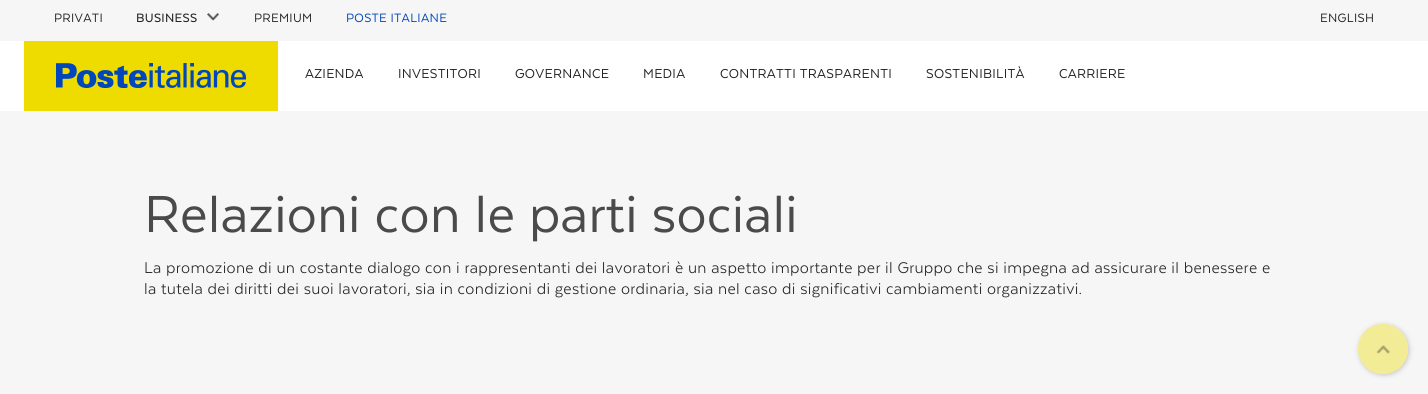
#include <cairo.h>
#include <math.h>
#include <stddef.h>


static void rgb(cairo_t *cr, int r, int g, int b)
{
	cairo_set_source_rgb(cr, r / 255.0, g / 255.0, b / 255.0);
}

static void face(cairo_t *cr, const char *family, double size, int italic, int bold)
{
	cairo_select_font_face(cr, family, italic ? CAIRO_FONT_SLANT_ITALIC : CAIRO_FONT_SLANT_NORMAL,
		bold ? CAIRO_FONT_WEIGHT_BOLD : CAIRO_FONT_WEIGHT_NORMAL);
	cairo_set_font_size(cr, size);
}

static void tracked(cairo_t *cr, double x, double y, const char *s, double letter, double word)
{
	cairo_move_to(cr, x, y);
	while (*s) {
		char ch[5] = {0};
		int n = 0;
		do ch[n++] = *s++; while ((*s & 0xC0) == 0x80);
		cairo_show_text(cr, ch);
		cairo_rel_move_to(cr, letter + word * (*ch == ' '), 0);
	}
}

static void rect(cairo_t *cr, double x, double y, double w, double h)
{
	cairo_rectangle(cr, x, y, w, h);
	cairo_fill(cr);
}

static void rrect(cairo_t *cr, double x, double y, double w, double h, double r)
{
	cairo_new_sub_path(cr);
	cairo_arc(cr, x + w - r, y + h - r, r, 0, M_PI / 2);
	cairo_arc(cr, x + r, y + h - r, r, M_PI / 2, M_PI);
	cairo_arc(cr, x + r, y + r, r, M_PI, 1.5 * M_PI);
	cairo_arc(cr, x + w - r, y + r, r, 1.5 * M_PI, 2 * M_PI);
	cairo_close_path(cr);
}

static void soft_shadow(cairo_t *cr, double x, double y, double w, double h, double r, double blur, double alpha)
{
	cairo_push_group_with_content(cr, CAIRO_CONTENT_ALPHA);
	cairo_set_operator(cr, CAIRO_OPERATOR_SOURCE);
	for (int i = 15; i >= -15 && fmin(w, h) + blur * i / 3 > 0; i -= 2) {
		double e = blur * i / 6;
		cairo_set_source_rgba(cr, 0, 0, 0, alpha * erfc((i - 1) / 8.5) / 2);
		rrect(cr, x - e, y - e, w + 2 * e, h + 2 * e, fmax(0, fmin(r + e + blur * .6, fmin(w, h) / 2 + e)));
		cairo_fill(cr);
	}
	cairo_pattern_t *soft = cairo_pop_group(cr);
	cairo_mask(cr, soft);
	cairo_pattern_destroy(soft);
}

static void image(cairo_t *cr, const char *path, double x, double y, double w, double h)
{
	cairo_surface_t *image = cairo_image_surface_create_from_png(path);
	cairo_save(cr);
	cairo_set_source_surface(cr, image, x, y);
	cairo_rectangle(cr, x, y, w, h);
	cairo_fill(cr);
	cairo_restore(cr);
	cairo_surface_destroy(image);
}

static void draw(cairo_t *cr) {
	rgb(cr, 246, 246, 246);
	cairo_paint(cr);
	face(cr, "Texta", 14, 0, 0);
	rgb(cr, 34, 36, 39);
	tracked(cr, 54, 22, "PRIVATI", 0.3, 0);
	face(cr, "Texta Medium", 14, 0, 0);
	tracked(cr, 136, 22, "BUSINESS", 0.3, 0);
	image(cr, "image0.png", 207, 13, 12, 8);
	face(cr, "Texta", 14, 0, 0);
	tracked(cr, 254, 22, "PREMIUM", 0.3, 0);
	rgb(cr, 0, 71, 187);
	tracked(cr, 346, 22, "POSTE ITALIANE", 0.3, 0);
	rgb(cr, 34, 36, 39);
	tracked(cr, 1320, 22, "ENGLISH", 0.3, 0);
	rgb(cr, 255, 255, 255);
	rect(cr, 0, 41, 1428, 70);
	rgb(cr, 238, 220, 0);
	rect(cr, 24, 41, 254, 70);
	image(cr, "image1.png", 56, 63, 190, 25);
	face(cr, "Texta", 15, 0, 0);
	rgb(cr, 34, 36, 39);
	tracked(cr, 305, 78, "AZIENDA", 0.3, 0);
	tracked(cr, 398, 78, "INVESTITORI", 0.3, 0);
	tracked(cr, 515, 78, "GOVERNANCE", 0.3, 0);
	tracked(cr, 643, 78, "MEDIA", 0.3, 0);
	tracked(cr, 720, 78, "CONTRATTI TRASPARENTI", 0.3, 0);
	tracked(cr, 926, 78, "SOSTENIBILITÀ", 0.3, 0);
	tracked(cr, 1059, 78, "CARRIERE", 0.3, 0);
	face(cr, "Texta", 60, 0, 0);
	rgb(cr, 74, 74, 74);
	tracked(cr, 144, 232, "Relazioni con le parti sociali", 0.3, 0);
	face(cr, "Texta Light", 18, 0, 0);
	rgb(cr, 34, 36, 39);
	tracked(cr, 144, 273, "La promozione di un costante dialogo con i rappresentanti dei lavoratori è un aspetto importante per il Gruppo che si impegna ad assicurare il benessere e", 0.3, 0);
	tracked(cr, 144, 294, "la tutela dei diritti dei suoi lavoratori, sia in condizioni di gestione ordinaria, sia nel caso di significativi cambiamenti organizzativi.", 0.3, 0);
	rgb(cr, 170, 170, 170);
	soft_shadow(cr, 1359, 325, 50, 50, 25, 2.5, 0.65);
	rgb(cr, 243, 236, 151);
	cairo_arc(cr, 1383, 349, 25, 0, 2 * M_PI);
	cairo_fill(cr);
	image(cr, "image2.png", 1376, 345, 14, 9);
	cairo_arc(cr, 1383, 349, 24.5, 0, 2 * M_PI);
	cairo_set_line_width(cr, 1);
	cairo_stroke(cr);
}

int main(void) {
	cairo_surface_t *surface = cairo_image_surface_create(CAIRO_FORMAT_RGB24, 1428, 394);
	cairo_t *cr = cairo_create(surface);
	cairo_font_options_t *options = cairo_font_options_create();
	cairo_font_options_set_hint_metrics(options, CAIRO_HINT_METRICS_OFF);
	cairo_font_options_set_hint_style(options, CAIRO_HINT_STYLE_NONE);
	cairo_set_font_options(cr, options);
	cairo_set_miter_limit(cr, 4);
	draw(cr);
	cairo_surface_write_to_png(surface, "render.png");
	cairo_font_options_destroy(options);
	cairo_destroy(cr);
	cairo_surface_destroy(surface);
	return 0;
}
